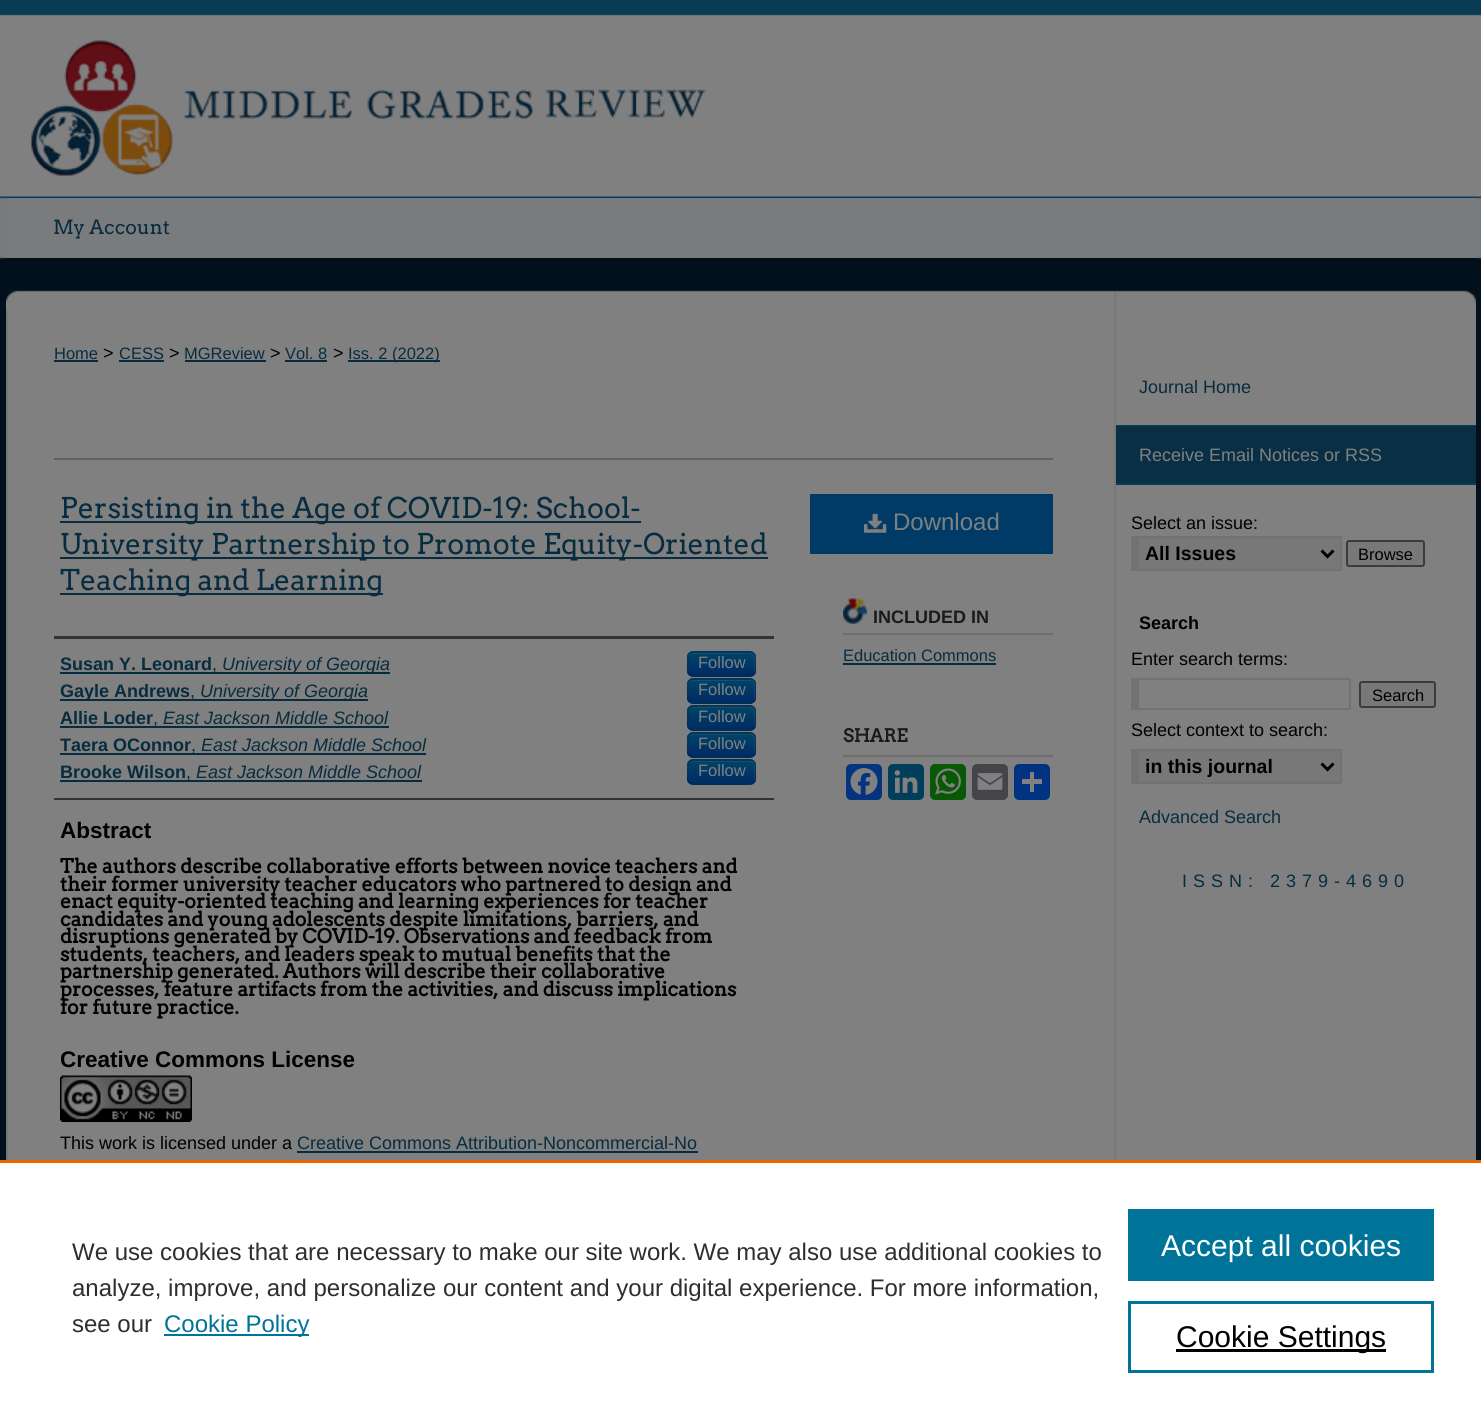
#include <cairo.h>
#include <math.h>
#include <stddef.h>


static void rgb(cairo_t *cr, int r, int g, int b)
{
	cairo_set_source_rgb(cr, r / 255.0, g / 255.0, b / 255.0);
}

static void face(cairo_t *cr, const char *family, double size, int italic, int bold)
{
	cairo_select_font_face(cr, family, italic ? CAIRO_FONT_SLANT_ITALIC : CAIRO_FONT_SLANT_NORMAL,
		bold ? CAIRO_FONT_WEIGHT_BOLD : CAIRO_FONT_WEIGHT_NORMAL);
	cairo_set_font_size(cr, size);
}

static void label(cairo_t *cr, double x, double y, const char *s)
{
	cairo_move_to(cr, x, y);
	cairo_show_text(cr, s);
}

static void tracked(cairo_t *cr, double x, double y, const char *s, double letter, double word)
{
	cairo_move_to(cr, x, y);
	while (*s) {
		char ch[5] = {0};
		int n = 0;
		do ch[n++] = *s++; while ((*s & 0xC0) == 0x80);
		cairo_show_text(cr, ch);
		cairo_rel_move_to(cr, letter + word * (*ch == ' '), 0);
	}
}

static void rect(cairo_t *cr, double x, double y, double w, double h)
{
	cairo_rectangle(cr, x, y, w, h);
	cairo_fill(cr);
}

static void rrect(cairo_t *cr, double x, double y, double w, double h, double r)
{
	cairo_new_sub_path(cr);
	cairo_arc(cr, x + w - r, y + h - r, r, 0, M_PI / 2);
	cairo_arc(cr, x + r, y + h - r, r, M_PI / 2, M_PI);
	cairo_arc(cr, x + r, y + r, r, M_PI, 1.5 * M_PI);
	cairo_arc(cr, x + w - r, y + r, r, 1.5 * M_PI, 2 * M_PI);
	cairo_close_path(cr);
}

static void image(cairo_t *cr, const char *path, double x, double y, double w, double h)
{
	cairo_surface_t *image = cairo_image_surface_create_from_png(path);
	cairo_save(cr);
	cairo_set_source_surface(cr, image, x, y);
	cairo_rectangle(cr, x, y, w, h);
	cairo_fill(cr);
	cairo_restore(cr);
	cairo_surface_destroy(image);
}

static void draw(cairo_t *cr) {
	cairo_pattern_t *gradient;
	rgb(cr, 2, 16, 29);
	cairo_paint(cr);
	image(cr, "image0.png", 0, 0, 1481, 261);
	image(cr, "image1.png", 6, 0, 1470, 198);
	rgb(cr, 121, 123, 125);
	rect(cr, 6, 198, 1470, 60);
	face(cr, "Arvo", 19.5, 0, 0);
	rgb(cr, 7, 44, 63);
	label(cr, 53, 234, "My Account");
	rgb(cr, 128, 128, 128);
	rect(cr, 6, 313, 1470, 1);
	image(cr, "image2.png", 6, 258, 1470, 56);
	rect(cr, 1116, 314, 360, 846);
	image(cr, "image3.png", 6, 313, 1110, 847);
	face(cr, "Liberation Sans", 16.5, 0, 0);
	rgb(cr, 7, 44, 63);
	label(cr, 54, 359, "Home");
	rect(cr, 54, 360, 44, 2);
	face(cr, "Liberation Sans", 18, 0, 0);
	rgb(cr, 0, 0, 0);
	label(cr, 103, 359, ">");
	face(cr, "Liberation Sans", 16.5, 0, 0);
	rgb(cr, 7, 44, 63);
	label(cr, 119, 359, "CESS");
	rect(cr, 119, 360, 45, 2);
	face(cr, "Liberation Sans", 18, 0, 0);
	rgb(cr, 0, 0, 0);
	label(cr, 169, 359, ">");
	face(cr, "Liberation Sans", 16.5, 0, 0);
	rgb(cr, 7, 44, 63);
	label(cr, 184, 359, "MGReview");
	rect(cr, 185, 360, 81, 2);
	face(cr, "Liberation Sans", 18, 0, 0);
	rgb(cr, 0, 0, 0);
	label(cr, 270, 359, ">");
	face(cr, "Liberation Sans", 16.5, 0, 0);
	rgb(cr, 7, 44, 63);
	label(cr, 285, 359, "Vol. 8");
	rect(cr, 285, 360, 42, 2);
	face(cr, "Liberation Sans", 18, 0, 0);
	rgb(cr, 0, 0, 0);
	label(cr, 333, 359, ">");
	rgb(cr, 7, 44, 63);
	rect(cr, 348, 360, 92, 2);
	face(cr, "Liberation Sans", 16.5, 0, 0);
	label(cr, 348, 359, "Iss. 2 (2022)");
	rgb(cr, 96, 96, 96);
	rect(cr, 54, 458, 999, 2);
	rgb(cr, 7, 44, 63);
	rect(cr, 60, 521, 581, 2);
	face(cr, "Arvo", 28.5, 0, 0);
	label(cr, 60, 518, "Persisting in the Age of COVID-19: School-");
	rect(cr, 60, 557, 708, 2);
	label(cr, 60, 554, "University Partnership to Promote Equity-Oriented");
	rect(cr, 60, 593, 323, 2);
	label(cr, 60, 590, "Teaching and Learning");
	rgb(cr, 51, 51, 51);
	rect(cr, 54, 636, 720, 3);
	rect(cr, 54, 798, 720, 2);
	face(cr, "Liberation Sans", 18, 0, 1);
	rgb(cr, 7, 44, 63);
	label(cr, 60, 670, "Susan Y. Leonard");
	rect(cr, 60, 672, 330, 2);
	face(cr, "Liberation Sans", 18, 0, 0);
	label(cr, 212, 670, ",");
	face(cr, "Liberation Sans", 18, 1, 0);
	label(cr, 222, 670, "University of Georgia");
	rgb(cr, 0, 58, 102);
	rrect(cr, 687, 651, 69, 26, 6);
	cairo_fill(cr);
	cairo_save(cr);
	rrect(cr, 687, 651, 69, 26, 6);
	cairo_clip(cr);
	gradient = cairo_pattern_create_linear(722, 653, 722, 675);
	cairo_pattern_add_color_stop_rgba(gradient, 0, 0, 0.267, 0.4, 1);
	cairo_pattern_add_color_stop_rgba(gradient, 1, 0, 0.169, 0.4, 1);
	cairo_set_source(cr, gradient);
	cairo_pattern_destroy(gradient);
	rect(cr, 687, 653, 69, 22);
	cairo_restore(cr);
	cairo_set_source_rgba(cr, 0.502, 0.502, 0.502, 0.2);
	cairo_new_path(cr);
	cairo_move_to(cr, 693, 654);
	cairo_line_to(cr, 740, 654);
	cairo_curve_to(cr, 752, 654, 754, 652, 754, 663);
	cairo_line_to(cr, 754, 673);
	cairo_curve_to(cr, 755, 672, 755, 671, 755, 670);
	cairo_line_to(cr, 755, 658);
	cairo_curve_to(cr, 755, 655, 753, 653, 750, 653);
	cairo_line_to(cr, 694, 653);
	cairo_curve_to(cr, 692, 653, 691, 654, 690, 655);
	cairo_close_path(cr);
	cairo_fill(cr);
	cairo_new_path(cr);
	cairo_move_to(cr, 753.5, 674);
	cairo_curve_to(cr, 752.5, 675, 751.5, 676, 750, 676);
	cairo_line_to(cr, 693, 676);
	cairo_curve_to(cr, 691.5, 676, 690.5, 675, 689.5, 674);
	cairo_set_source_rgba(cr, 0, 0, 0, 0.25);
	cairo_set_line_width(cr, 1.5);
	cairo_stroke(cr);
	cairo_new_path(cr);
	cairo_move_to(cr, 689.5, 674);
	cairo_curve_to(cr, 686.5, 671.5, 688, 667, 688, 664);
	cairo_curve_to(cr, 688, 650.5, 688.5, 652, 702.5, 652);
	cairo_line_to(cr, 740.5, 652);
	cairo_curve_to(cr, 754.5, 652, 755, 650.5, 755, 664);
	cairo_curve_to(cr, 755, 667, 756.5, 671.5, 753.5, 674);
	cairo_set_source_rgba(cr, 0, 0, 0, 0.1);
	cairo_stroke(cr);
	face(cr, "Liberation Sans", 16.5, 0, 0);
	rgb(cr, 128, 128, 128);
	label(cr, 698, 668, "Follow");
	rgb(cr, 7, 44, 63);
	rect(cr, 60, 699, 308, 2);
	face(cr, "Liberation Sans", 18, 0, 1);
	label(cr, 60, 697, "Gayle Andrews");
	face(cr, "Liberation Sans", 18, 0, 0);
	label(cr, 190, 697, ",");
	face(cr, "Liberation Sans", 18, 1, 0);
	label(cr, 200, 697, "University of Georgia");
	rgb(cr, 0, 58, 102);
	rrect(cr, 687, 678, 69, 26, 6);
	cairo_fill(cr);
	cairo_save(cr);
	rrect(cr, 687, 678, 69, 26, 6);
	cairo_clip(cr);
	gradient = cairo_pattern_create_linear(722, 680, 722, 702);
	cairo_pattern_add_color_stop_rgba(gradient, 0, 0, 0.267, 0.4, 1);
	cairo_pattern_add_color_stop_rgba(gradient, 1, 0, 0.169, 0.4, 1);
	cairo_set_source(cr, gradient);
	cairo_pattern_destroy(gradient);
	rect(cr, 687, 680, 69, 22);
	cairo_restore(cr);
	cairo_set_source_rgba(cr, 0.502, 0.502, 0.502, 0.2);
	cairo_new_path(cr);
	cairo_move_to(cr, 693, 681);
	cairo_line_to(cr, 740, 681);
	cairo_curve_to(cr, 752, 681, 754, 679, 754, 690);
	cairo_line_to(cr, 754, 700);
	cairo_curve_to(cr, 755, 699, 755, 698, 755, 697);
	cairo_line_to(cr, 755, 685);
	cairo_curve_to(cr, 755, 682, 753, 680, 750, 680);
	cairo_line_to(cr, 694, 680);
	cairo_curve_to(cr, 692, 680, 691, 681, 690, 682);
	cairo_close_path(cr);
	cairo_fill(cr);
	cairo_new_path(cr);
	cairo_move_to(cr, 753.5, 701);
	cairo_curve_to(cr, 752.5, 702, 751.5, 703, 750, 703);
	cairo_line_to(cr, 693, 703);
	cairo_curve_to(cr, 691.5, 703, 690.5, 702, 689.5, 701);
	cairo_set_source_rgba(cr, 0, 0, 0, 0.25);
	cairo_stroke(cr);
	cairo_new_path(cr);
	cairo_move_to(cr, 689.5, 701);
	cairo_curve_to(cr, 686.5, 698.5, 688, 694, 688, 691);
	cairo_curve_to(cr, 688, 677.5, 688.5, 679, 702.5, 679);
	cairo_line_to(cr, 740.5, 679);
	cairo_curve_to(cr, 754.5, 679, 755, 677.5, 755, 691);
	cairo_curve_to(cr, 755, 694, 756.5, 698.5, 753.5, 701);
	cairo_set_source_rgba(cr, 0, 0, 0, 0.1);
	cairo_stroke(cr);
	face(cr, "Liberation Sans", 16.5, 0, 0);
	rgb(cr, 128, 128, 128);
	label(cr, 698, 695, "Follow");
	face(cr, "Liberation Sans", 18, 0, 1);
	rgb(cr, 7, 44, 63);
	label(cr, 60, 724, "Allie Loder");
	rect(cr, 60, 726, 329, 2);
	face(cr, "Liberation Sans", 18, 0, 0);
	label(cr, 153, 724, ",");
	face(cr, "Liberation Sans", 18, 1, 0);
	label(cr, 163, 724, "East Jackson Middle School");
	rgb(cr, 0, 58, 102);
	rrect(cr, 687, 705, 69, 26, 6);
	cairo_fill(cr);
	cairo_save(cr);
	rrect(cr, 687, 705, 69, 26, 6);
	cairo_clip(cr);
	gradient = cairo_pattern_create_linear(722, 707, 722, 729);
	cairo_pattern_add_color_stop_rgba(gradient, 0, 0, 0.267, 0.4, 1);
	cairo_pattern_add_color_stop_rgba(gradient, 1, 0, 0.169, 0.4, 1);
	cairo_set_source(cr, gradient);
	cairo_pattern_destroy(gradient);
	rect(cr, 687, 707, 69, 22);
	cairo_restore(cr);
	cairo_set_source_rgba(cr, 0.502, 0.502, 0.502, 0.2);
	cairo_new_path(cr);
	cairo_move_to(cr, 693, 708);
	cairo_line_to(cr, 740, 708);
	cairo_curve_to(cr, 752, 708, 754, 706, 754, 717);
	cairo_line_to(cr, 754, 727);
	cairo_curve_to(cr, 755, 726, 755, 725, 755, 724);
	cairo_line_to(cr, 755, 712);
	cairo_curve_to(cr, 755, 709, 753, 707, 750, 707);
	cairo_line_to(cr, 694, 707);
	cairo_curve_to(cr, 692, 707, 691, 708, 690, 709);
	cairo_close_path(cr);
	cairo_fill(cr);
	cairo_new_path(cr);
	cairo_move_to(cr, 753.5, 728);
	cairo_curve_to(cr, 752.5, 729, 751.5, 730, 750, 730);
	cairo_line_to(cr, 693, 730);
	cairo_curve_to(cr, 691.5, 730, 690.5, 729, 689.5, 728);
	cairo_set_source_rgba(cr, 0, 0, 0, 0.25);
	cairo_stroke(cr);
	cairo_new_path(cr);
	cairo_move_to(cr, 689.5, 728);
	cairo_curve_to(cr, 686.5, 725.5, 688, 721, 688, 718);
	cairo_curve_to(cr, 688, 704.5, 688.5, 706, 702.5, 706);
	cairo_line_to(cr, 740.5, 706);
	cairo_curve_to(cr, 754.5, 706, 755, 704.5, 755, 718);
	cairo_curve_to(cr, 755, 721, 756.5, 725.5, 753.5, 728);
	cairo_set_source_rgba(cr, 0, 0, 0, 0.1);
	cairo_stroke(cr);
	face(cr, "Liberation Sans", 16.5, 0, 0);
	rgb(cr, 128, 128, 128);
	label(cr, 698, 722, "Follow");
	face(cr, "Liberation Sans", 18, 0, 1);
	rgb(cr, 7, 44, 63);
	label(cr, 60, 751, "Taera OConnor");
	rect(cr, 60, 753, 366, 2);
	face(cr, "Liberation Sans", 18, 0, 0);
	label(cr, 191, 751, ",");
	face(cr, "Liberation Sans", 18, 1, 0);
	label(cr, 201, 751, "East Jackson Middle School");
	rgb(cr, 0, 58, 102);
	rrect(cr, 687, 732, 69, 26, 6);
	cairo_fill(cr);
	cairo_save(cr);
	rrect(cr, 687, 732, 69, 26, 6);
	cairo_clip(cr);
	gradient = cairo_pattern_create_linear(722, 734, 722, 756);
	cairo_pattern_add_color_stop_rgba(gradient, 0, 0, 0.267, 0.4, 1);
	cairo_pattern_add_color_stop_rgba(gradient, 1, 0, 0.169, 0.4, 1);
	cairo_set_source(cr, gradient);
	cairo_pattern_destroy(gradient);
	rect(cr, 687, 734, 69, 22);
	cairo_restore(cr);
	cairo_set_source_rgba(cr, 0.502, 0.502, 0.502, 0.2);
	cairo_new_path(cr);
	cairo_move_to(cr, 693, 735);
	cairo_line_to(cr, 740, 735);
	cairo_curve_to(cr, 752, 735, 754, 733, 754, 744);
	cairo_line_to(cr, 754, 754);
	cairo_curve_to(cr, 755, 753, 755, 752, 755, 751);
	cairo_line_to(cr, 755, 739);
	cairo_curve_to(cr, 755, 736, 753, 734, 750, 734);
	cairo_line_to(cr, 694, 734);
	cairo_curve_to(cr, 692, 734, 691, 735, 690, 736);
	cairo_close_path(cr);
	cairo_fill(cr);
	cairo_new_path(cr);
	cairo_move_to(cr, 753.5, 755);
	cairo_curve_to(cr, 752.5, 756, 751.5, 757, 750, 757);
	cairo_line_to(cr, 693, 757);
	cairo_curve_to(cr, 691.5, 757, 690.5, 756, 689.5, 755);
	cairo_set_source_rgba(cr, 0, 0, 0, 0.25);
	cairo_stroke(cr);
	cairo_new_path(cr);
	cairo_move_to(cr, 689.5, 755);
	cairo_curve_to(cr, 686.5, 752.5, 688, 748, 688, 745);
	cairo_curve_to(cr, 688, 731.5, 688.5, 733, 702.5, 733);
	cairo_line_to(cr, 740.5, 733);
	cairo_curve_to(cr, 754.5, 733, 755, 731.5, 755, 745);
	cairo_curve_to(cr, 755, 748, 756.5, 752.5, 753.5, 755);
	cairo_set_source_rgba(cr, 0, 0, 0, 0.1);
	cairo_stroke(cr);
	face(cr, "Liberation Sans", 16.5, 0, 0);
	rgb(cr, 128, 128, 128);
	label(cr, 698, 749, "Follow");
	face(cr, "Liberation Sans", 18, 0, 1);
	rgb(cr, 7, 44, 63);
	label(cr, 60, 778, "Brooke Wilson");
	rect(cr, 60, 780, 362, 2);
	face(cr, "Liberation Sans", 18, 0, 0);
	label(cr, 186, 778, ",");
	face(cr, "Liberation Sans", 18, 1, 0);
	label(cr, 196, 778, "East Jackson Middle School");
	rgb(cr, 0, 58, 102);
	rrect(cr, 687, 759, 69, 26, 6);
	cairo_fill(cr);
	cairo_save(cr);
	rrect(cr, 687, 759, 69, 26, 6);
	cairo_clip(cr);
	gradient = cairo_pattern_create_linear(722, 761, 722, 783);
	cairo_pattern_add_color_stop_rgba(gradient, 0, 0, 0.267, 0.4, 1);
	cairo_pattern_add_color_stop_rgba(gradient, 1, 0, 0.169, 0.4, 1);
	cairo_set_source(cr, gradient);
	cairo_pattern_destroy(gradient);
	rect(cr, 687, 761, 69, 22);
	cairo_restore(cr);
	cairo_set_source_rgba(cr, 0.502, 0.502, 0.502, 0.2);
	cairo_new_path(cr);
	cairo_move_to(cr, 693, 762);
	cairo_line_to(cr, 740, 762);
	cairo_curve_to(cr, 752, 762, 754, 760, 754, 771);
	cairo_line_to(cr, 754, 781);
	cairo_curve_to(cr, 755, 780, 755, 779, 755, 778);
	cairo_line_to(cr, 755, 766);
	cairo_curve_to(cr, 755, 763, 753, 761, 750, 761);
	cairo_line_to(cr, 694, 761);
	cairo_curve_to(cr, 692, 761, 691, 762, 690, 763);
	cairo_close_path(cr);
	cairo_fill(cr);
	cairo_new_path(cr);
	cairo_move_to(cr, 753.5, 782);
	cairo_curve_to(cr, 752.5, 783, 751.5, 784, 750, 784);
	cairo_line_to(cr, 693, 784);
	cairo_curve_to(cr, 691.5, 784, 690.5, 783, 689.5, 782);
	cairo_set_source_rgba(cr, 0, 0, 0, 0.25);
	cairo_stroke(cr);
	cairo_new_path(cr);
	cairo_move_to(cr, 689.5, 782);
	cairo_curve_to(cr, 686.5, 779.5, 688, 775, 688, 772);
	cairo_curve_to(cr, 688, 758.5, 688.5, 760, 702.5, 760);
	cairo_line_to(cr, 740.5, 760);
	cairo_curve_to(cr, 754.5, 760, 755, 758.5, 755, 772);
	cairo_curve_to(cr, 755, 775, 756.5, 779.5, 753.5, 782);
	cairo_set_source_rgba(cr, 0, 0, 0, 0.1);
	cairo_stroke(cr);
	face(cr, "Liberation Sans", 16.5, 0, 0);
	rgb(cr, 128, 128, 128);
	label(cr, 698, 776, "Follow");
	face(cr, "Liberation Sans", 22.5, 0, 1);
	rgb(cr, 0, 0, 0);
	label(cr, 60, 838, "Abstract");
	face(cr, "Arvo", 19.5, 0, 1);
	label(cr, 60, 873, "The authors describe collaborative efforts between novice teachers and");
	label(cr, 60, 891, "their former university teacher educators who partnered to design and");
	label(cr, 60, 908, "enact equity-oriented teaching and learning experiences for teacher");
	label(cr, 60, 926, "candidates and young adolescents despite limitations, barriers, and");
	label(cr, 60, 943, "disruptions generated by COVID-19. Observations and feedback from");
	label(cr, 60, 961, "students, teachers, and leaders speak to mutual benefits that the");
	label(cr, 60, 978, "partnership generated. Authors will describe their collaborative");
	label(cr, 60, 996, "processes, feature artifacts from the activities, and discuss implications");
	label(cr, 60, 1014, "for future practice.");
	face(cr, "Liberation Sans", 22.5, 0, 1);
	label(cr, 60, 1067, "Creative Commons License");
	image(cr, "image4.png", 60, 1075, 132, 47);
	face(cr, "Liberation Sans", 18, 0, 0);
	label(cr, 60, 1149, "This work is licensed under a");
	rgb(cr, 7, 44, 63);
	label(cr, 297, 1149, "Creative Commons Attribution-Noncommercial-No");
	rect(cr, 297, 1151, 401, 2);
	rgb(cr, 0, 58, 102);
	rect(cr, 810, 494, 243, 60);
	image(cr, "image5.png", 864, 513, 23, 20);
	face(cr, "Liberation Sans", 24, 0, 0);
	rgb(cr, 128, 128, 128);
	label(cr, 893, 530, "Download");
	image(cr, "image6.png", 843, 598, 24, 26);
	rgb(cr, 111, 111, 111);
	rect(cr, 843, 633, 210, 2);
	face(cr, "Liberation Sans", 18, 0, 1);
	rgb(cr, 26, 26, 26);
	label(cr, 873, 623, "INCLUDED IN");
	face(cr, "Liberation Sans", 16.5, 0, 0);
	rgb(cr, 7, 44, 63);
	label(cr, 843, 661, "Education Commons");
	rect(cr, 843, 663, 153, 2);
	rgb(cr, 111, 111, 111);
	rect(cr, 843, 755, 210, 2);
	face(cr, "Arvo", 18, 0, 1);
	rgb(cr, 26, 26, 26);
	label(cr, 843, 742, "SHARE");
	rgb(cr, 4, 51, 128);
	rrect(cr, 846, 764, 36, 36, 5);
	cairo_fill(cr);
	image(cr, "image7.png", 850, 768, 28, 27);
	rgb(cr, 0, 62, 91);
	rrect(cr, 888, 764, 36, 36, 5);
	cairo_fill(cr);
	image(cr, "image8.png", 894, 770, 24, 23);
	rgb(cr, 9, 88, 5);
	rrect(cr, 930, 764, 36, 36, 5);
	cairo_fill(cr);
	image(cr, "image9.png", 935, 768, 26, 27);
	rgb(cr, 68, 69, 72);
	rrect(cr, 972, 764, 36, 36, 5);
	cairo_fill(cr);
	image(cr, "image10.png", 977, 773, 26, 17);
	rgb(cr, 1, 51, 128);
	rrect(cr, 1014, 764, 36, 36, 5);
	cairo_fill(cr);
	rgb(cr, 128, 128, 128);
	rect(cr, 1030, 772, 4, 20);
	rect(cr, 1022, 779, 20, 5);
	face(cr, "Liberation Sans", 18, 0, 0);
	rgb(cr, 7, 44, 63);
	label(cr, 1139, 393, "Journal Home");
	rgb(cr, 9, 59, 84);
	rect(cr, 1116, 425, 360, 1);
	rgb(cr, 8, 47, 67);
	rect(cr, 1116, 426, 360, 57);
	rgb(cr, 9, 59, 84);
	rect(cr, 1116, 483, 360, 2);
	rgb(cr, 128, 128, 128);
	label(cr, 1139, 461, "Receive Email Notices or RSS");
	rgb(cr, 0, 0, 0);
	label(cr, 1131, 529, "Select an issue:");
	rgb(cr, 120, 120, 120);
	rect(cr, 1139, 538, 201, 31);
	rgb(cr, 114, 114, 114);
	rect(cr, 1131, 536, 210, 2);
	rect(cr, 1340, 536, 2, 34);
	rect(cr, 1131, 569, 210, 2);
	rect(cr, 1131, 536, 8, 34);
	cairo_new_path(cr);
	cairo_move_to(cr, 1321.5, 550.5);
	cairo_line_to(cr, 1327.5, 556.5);
	cairo_line_to(cr, 1333.5, 550.5);
	rgb(cr, 0, 0, 0);
	cairo_set_line_width(cr, 3);
	cairo_stroke(cr);
	face(cr, "Liberation Sans", 19.5, 0, 1);
	label(cr, 1145, 560, "All Issues");
	rgb(cr, 120, 120, 120);
	rrect(cr, 1347, 541, 77, 25, 2);
	cairo_fill_preserve(cr);
	rgb(cr, 59, 59, 59);
	cairo_set_line_width(cr, 2);
	cairo_stroke(cr);
	face(cr, "Liberation Sans", 16.5, 0, 0);
	rgb(cr, 0, 0, 0);
	label(cr, 1358, 560, "Browse");
	face(cr, "Liberation Sans", 18, 0, 1);
	label(cr, 1139, 629, "Search");
	face(cr, "Liberation Sans", 18, 0, 0);
	label(cr, 1131, 665, "Enter search terms:");
	rgb(cr, 114, 114, 114);
	rect(cr, 1131, 678, 219, 2);
	rect(cr, 1349, 678, 2, 32);
	rect(cr, 1131, 708, 219, 2);
	rect(cr, 1131, 678, 8, 32);
	rgb(cr, 120, 120, 120);
	rrect(cr, 1360, 682, 75, 25, 2);
	cairo_fill_preserve(cr);
	rgb(cr, 59, 59, 59);
	cairo_stroke(cr);
	face(cr, "Liberation Sans", 16.5, 0, 0);
	rgb(cr, 0, 0, 0);
	label(cr, 1372, 701, "Search");
	face(cr, "Liberation Sans", 18, 0, 0);
	label(cr, 1131, 736, "Select context to search:");
	rgb(cr, 120, 120, 120);
	rect(cr, 1139, 751, 201, 31);
	rgb(cr, 114, 114, 114);
	rect(cr, 1131, 749, 210, 2);
	rect(cr, 1340, 749, 2, 34);
	rect(cr, 1131, 782, 210, 2);
	rect(cr, 1131, 749, 8, 34);
	cairo_new_path(cr);
	cairo_move_to(cr, 1321.5, 763.5);
	cairo_line_to(cr, 1327.5, 769.5);
	cairo_line_to(cr, 1333.5, 763.5);
	rgb(cr, 0, 0, 0);
	cairo_set_line_width(cr, 3);
	cairo_stroke(cr);
	face(cr, "Liberation Sans", 19.5, 0, 1);
	label(cr, 1145, 773, "in this journal");
	face(cr, "Liberation Sans", 18, 0, 0);
	rgb(cr, 7, 44, 63);
	label(cr, 1139, 823, "Advanced Search");
	tracked(cr, 1182, 887, "ISSN: 2379-4690", 6, 0);
	rgb(cr, 255, 255, 255);
	rect(cr, 0, 1163, 1481, 251);
	rgb(cr, 235, 101, 0);
	rect(cr, 0, 1160, 1481, 3);
	face(cr, "Liberation Sans", 24, 0, 0);
	rgb(cr, 46, 46, 46);
	label(cr, 72, 1260, "We use cookies that are necessary to make our site work. We may also use additional cookies to");
	label(cr, 72, 1296, "analyze, improve, and personalize our content and your digital experience. For more information,");
	label(cr, 72, 1332, "see our");
	rgb(cr, 0, 115, 152);
	rect(cr, 164, 1334, 145, 2);
	label(cr, 164, 1332, "Cookie Policy");
	rect(cr, 1128, 1209, 306, 72);
	face(cr, "Liberation Sans", 30, 0, 0);
	rgb(cr, 255, 255, 255);
	label(cr, 1161, 1256, "Accept all cookies");
	cairo_rectangle(cr, 1129.5, 1302.5, 303, 69);
	rgb(cr, 0, 115, 152);
	cairo_stroke(cr);
	rgb(cr, 0, 0, 0);
	rect(cr, 1176, 1349, 210, 3);
	label(cr, 1176, 1347, "Cookie Settings");
}

int main(void) {
	cairo_surface_t *surface = cairo_image_surface_create(CAIRO_FORMAT_RGB24, 1481, 1414);
	cairo_t *cr = cairo_create(surface);
	cairo_font_options_t *options = cairo_font_options_create();
	cairo_font_options_set_hint_metrics(options, CAIRO_HINT_METRICS_OFF);
	cairo_font_options_set_hint_style(options, CAIRO_HINT_STYLE_NONE);
	cairo_set_font_options(cr, options);
	cairo_set_miter_limit(cr, 4);
	draw(cr);
	cairo_surface_write_to_png(surface, "render.png");
	cairo_font_options_destroy(options);
	cairo_destroy(cr);
	cairo_surface_destroy(surface);
	return 0;
}
